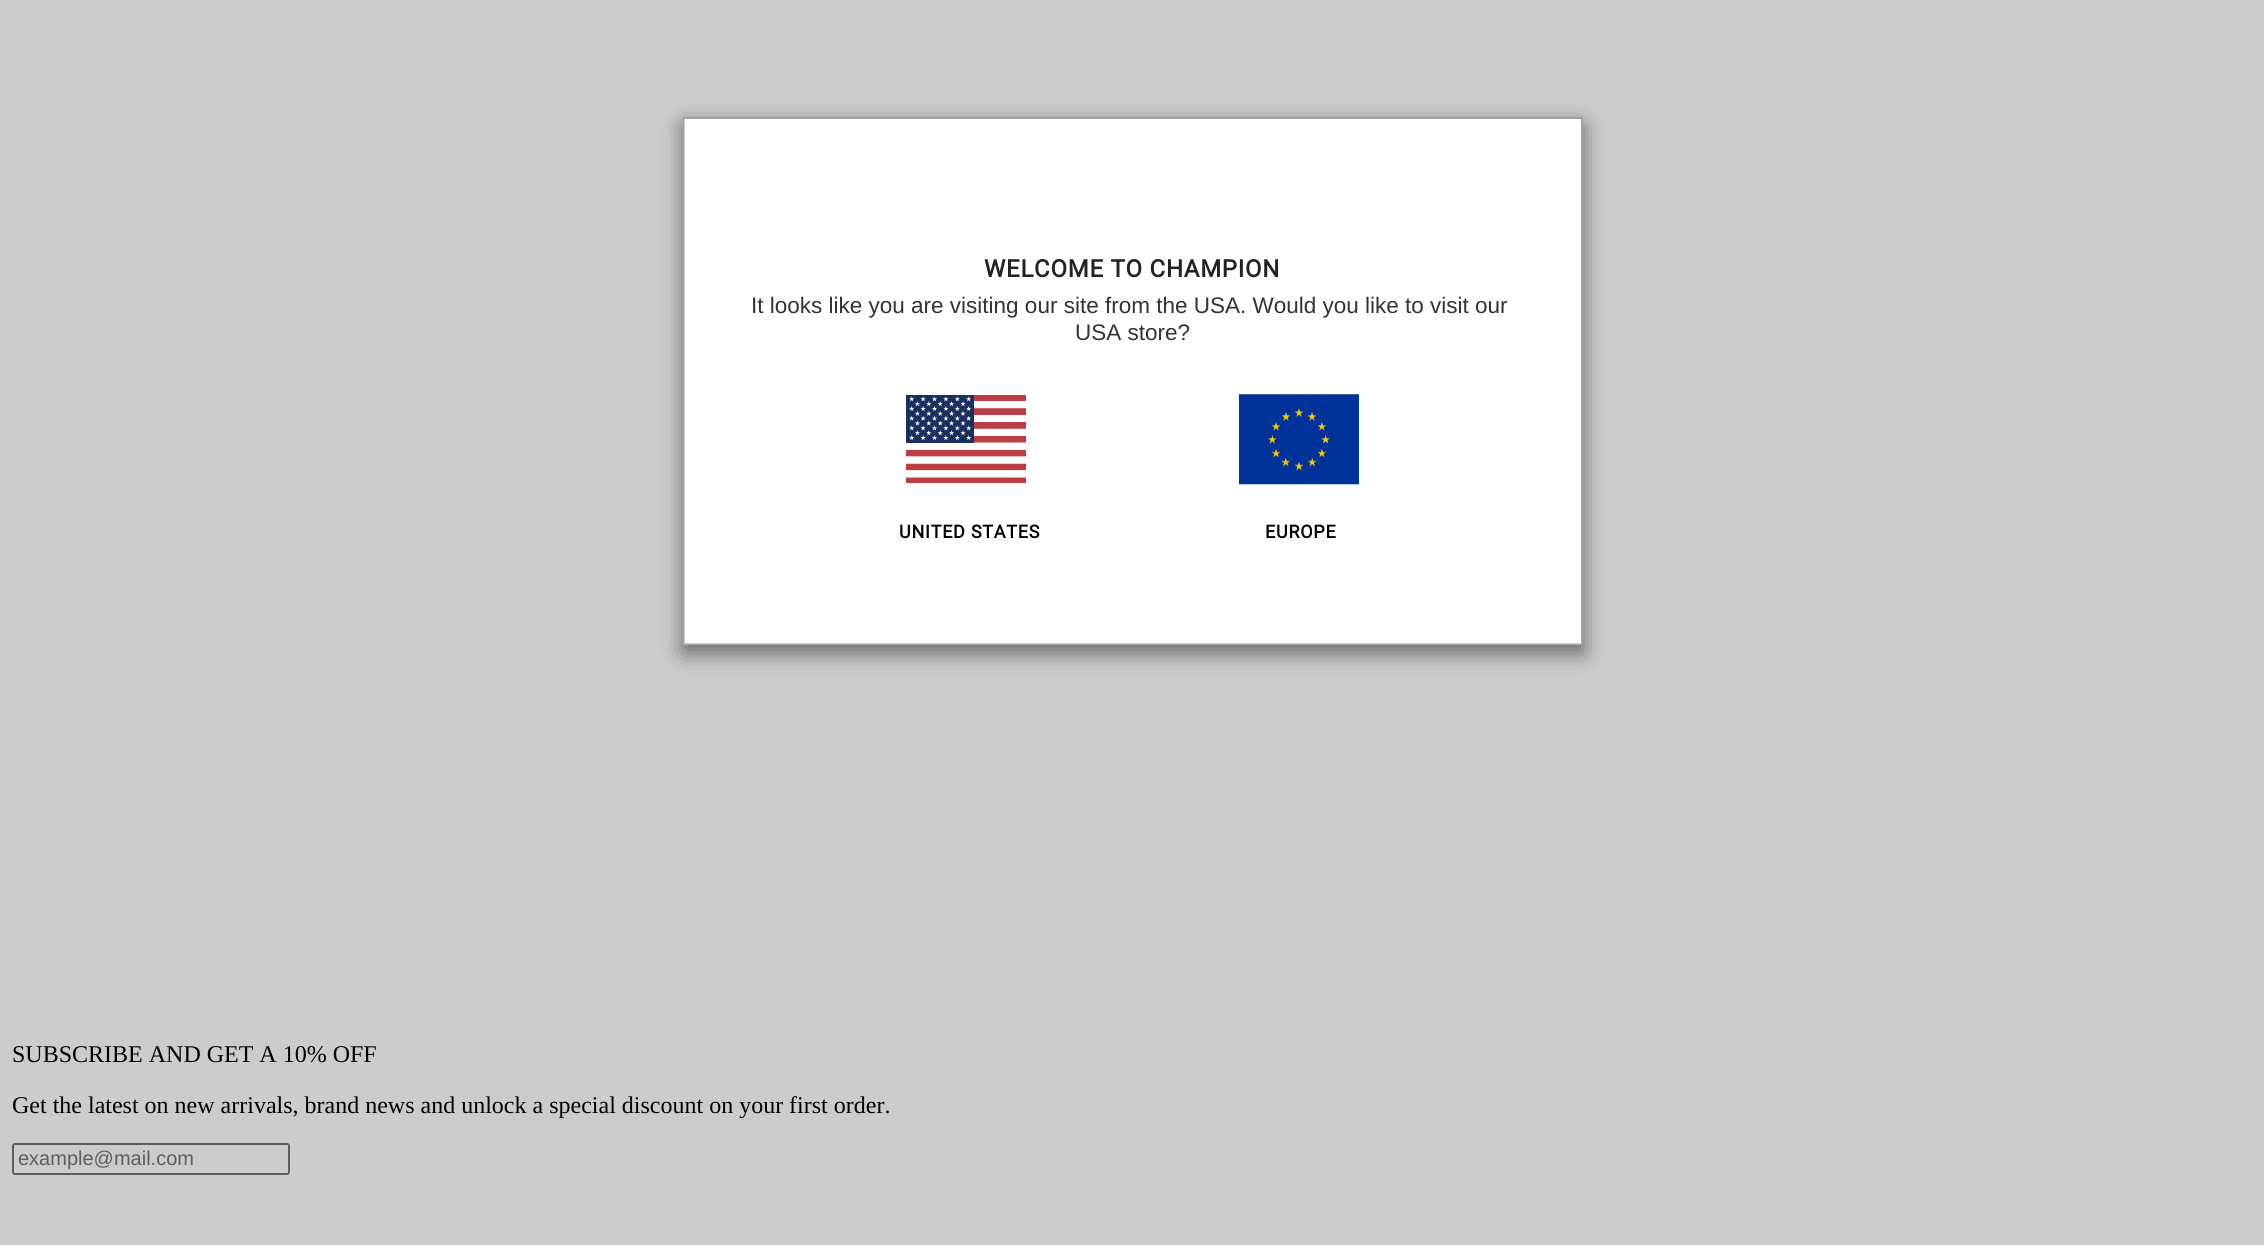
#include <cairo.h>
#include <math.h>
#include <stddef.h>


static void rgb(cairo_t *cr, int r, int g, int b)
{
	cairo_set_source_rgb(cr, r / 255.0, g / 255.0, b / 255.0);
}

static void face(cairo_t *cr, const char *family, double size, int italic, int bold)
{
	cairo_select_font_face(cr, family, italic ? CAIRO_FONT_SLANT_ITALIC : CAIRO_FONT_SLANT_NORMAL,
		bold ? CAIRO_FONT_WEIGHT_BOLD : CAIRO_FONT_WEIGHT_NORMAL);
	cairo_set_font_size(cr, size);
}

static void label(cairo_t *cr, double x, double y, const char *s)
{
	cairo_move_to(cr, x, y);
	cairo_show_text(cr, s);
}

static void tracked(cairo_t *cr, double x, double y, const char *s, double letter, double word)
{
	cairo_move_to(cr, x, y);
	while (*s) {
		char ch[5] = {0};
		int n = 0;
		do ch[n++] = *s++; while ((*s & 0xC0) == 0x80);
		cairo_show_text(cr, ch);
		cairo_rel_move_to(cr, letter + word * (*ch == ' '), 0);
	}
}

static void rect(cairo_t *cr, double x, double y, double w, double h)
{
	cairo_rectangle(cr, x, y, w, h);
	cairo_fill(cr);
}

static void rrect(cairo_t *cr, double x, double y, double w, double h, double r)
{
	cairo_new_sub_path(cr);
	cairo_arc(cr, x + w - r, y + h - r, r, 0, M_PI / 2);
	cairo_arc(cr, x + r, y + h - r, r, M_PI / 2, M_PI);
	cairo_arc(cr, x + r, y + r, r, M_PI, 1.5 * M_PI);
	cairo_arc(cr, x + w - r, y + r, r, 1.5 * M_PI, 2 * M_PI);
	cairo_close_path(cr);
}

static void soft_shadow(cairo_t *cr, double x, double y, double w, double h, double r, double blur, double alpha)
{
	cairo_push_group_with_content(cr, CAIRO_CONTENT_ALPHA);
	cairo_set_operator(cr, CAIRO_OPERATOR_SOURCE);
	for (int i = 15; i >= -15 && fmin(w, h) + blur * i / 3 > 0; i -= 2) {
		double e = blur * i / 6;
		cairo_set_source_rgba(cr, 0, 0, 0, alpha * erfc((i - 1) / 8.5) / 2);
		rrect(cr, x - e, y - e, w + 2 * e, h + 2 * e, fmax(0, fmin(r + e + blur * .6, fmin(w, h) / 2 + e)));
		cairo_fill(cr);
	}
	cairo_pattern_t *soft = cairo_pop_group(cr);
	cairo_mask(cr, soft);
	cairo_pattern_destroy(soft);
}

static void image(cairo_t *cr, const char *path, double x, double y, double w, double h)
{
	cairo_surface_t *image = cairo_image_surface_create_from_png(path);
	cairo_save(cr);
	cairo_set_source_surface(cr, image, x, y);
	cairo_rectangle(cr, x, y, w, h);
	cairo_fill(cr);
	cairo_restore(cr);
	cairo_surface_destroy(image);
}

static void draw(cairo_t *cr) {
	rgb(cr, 204, 204, 204);
	cairo_paint(cr);
	cairo_save(cr);
	cairo_set_fill_rule(cr, CAIRO_FILL_RULE_EVEN_ODD);
	cairo_new_path(cr);
	cairo_move_to(cr, 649, 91);
	cairo_line_to(cr, 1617, 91);
	cairo_line_to(cr, 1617, 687);
	cairo_line_to(cr, 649, 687);
	cairo_close_path(cr);
	cairo_move_to(cr, 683, 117);
	cairo_line_to(cr, 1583, 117);
	cairo_line_to(cr, 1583, 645);
	cairo_line_to(cr, 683, 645);
	cairo_close_path(cr);
	cairo_clip(cr);
	rgb(cr, 0, 0, 0);
	soft_shadow(cr, 683, 125, 900, 528, 0, 11, 0.5);
	cairo_restore(cr);
	rgb(cr, 255, 255, 255);
	rect(cr, 684, 119, 897, 525);
	cairo_rectangle(cr, 684, 118, 898, 526);
	cairo_set_source_rgba(cr, 0, 0, 0, 0.2);
	cairo_stroke(cr);
	face(cr, "Roboto", 24, 0, 1);
	rgb(cr, 35, 34, 35);
	tracked(cr, 984, 277, "WELCOME TO CHAMPION", 0.75, 0);
	face(cr, "Liberation Sans", 22.5, 0, 0);
	rgb(cr, 51, 51, 51);
	label(cr, 751, 313, "It looks like you are visiting our site from the USA. Would you like to visit our");
	label(cr, 1075, 340, "USA store?");
	image(cr, "image0.png", 906, 395, 120, 88);
	face(cr, "Roboto", 18, 0, 1);
	rgb(cr, 0, 0, 0);
	tracked(cr, 899, 538, "UNITED STATES", 0.75, 0);
	image(cr, "image1.png", 1239, 394, 120, 91);
	tracked(cr, 1265, 538, "EUROPE", 0.75, 0);
	face(cr, "Liberation Serif", 24, 0, 0);
	label(cr, 12, 1062, "SUBSCRIBE AND GET A 10% OFF");
	label(cr, 12, 1113, "Get the latest on new arrivals, brand news and unlock a special discount on your first order.");
	rrect(cr, 13, 1144, 276, 30, 2);
	rgb(cr, 94, 94, 94);
	cairo_stroke(cr);
	face(cr, "Liberation Sans", 20, 0, 0);
	label(cr, 18, 1165, "example@mail.com");
}

int main(void) {
	cairo_surface_t *surface = cairo_image_surface_create(CAIRO_FORMAT_RGB24, 2264, 1245);
	cairo_t *cr = cairo_create(surface);
	cairo_font_options_t *options = cairo_font_options_create();
	cairo_font_options_set_hint_metrics(options, CAIRO_HINT_METRICS_OFF);
	cairo_font_options_set_hint_style(options, CAIRO_HINT_STYLE_NONE);
	cairo_set_font_options(cr, options);
	cairo_set_miter_limit(cr, 4);
	draw(cr);
	cairo_surface_write_to_png(surface, "render.png");
	cairo_font_options_destroy(options);
	cairo_destroy(cr);
	cairo_surface_destroy(surface);
	return 0;
}
